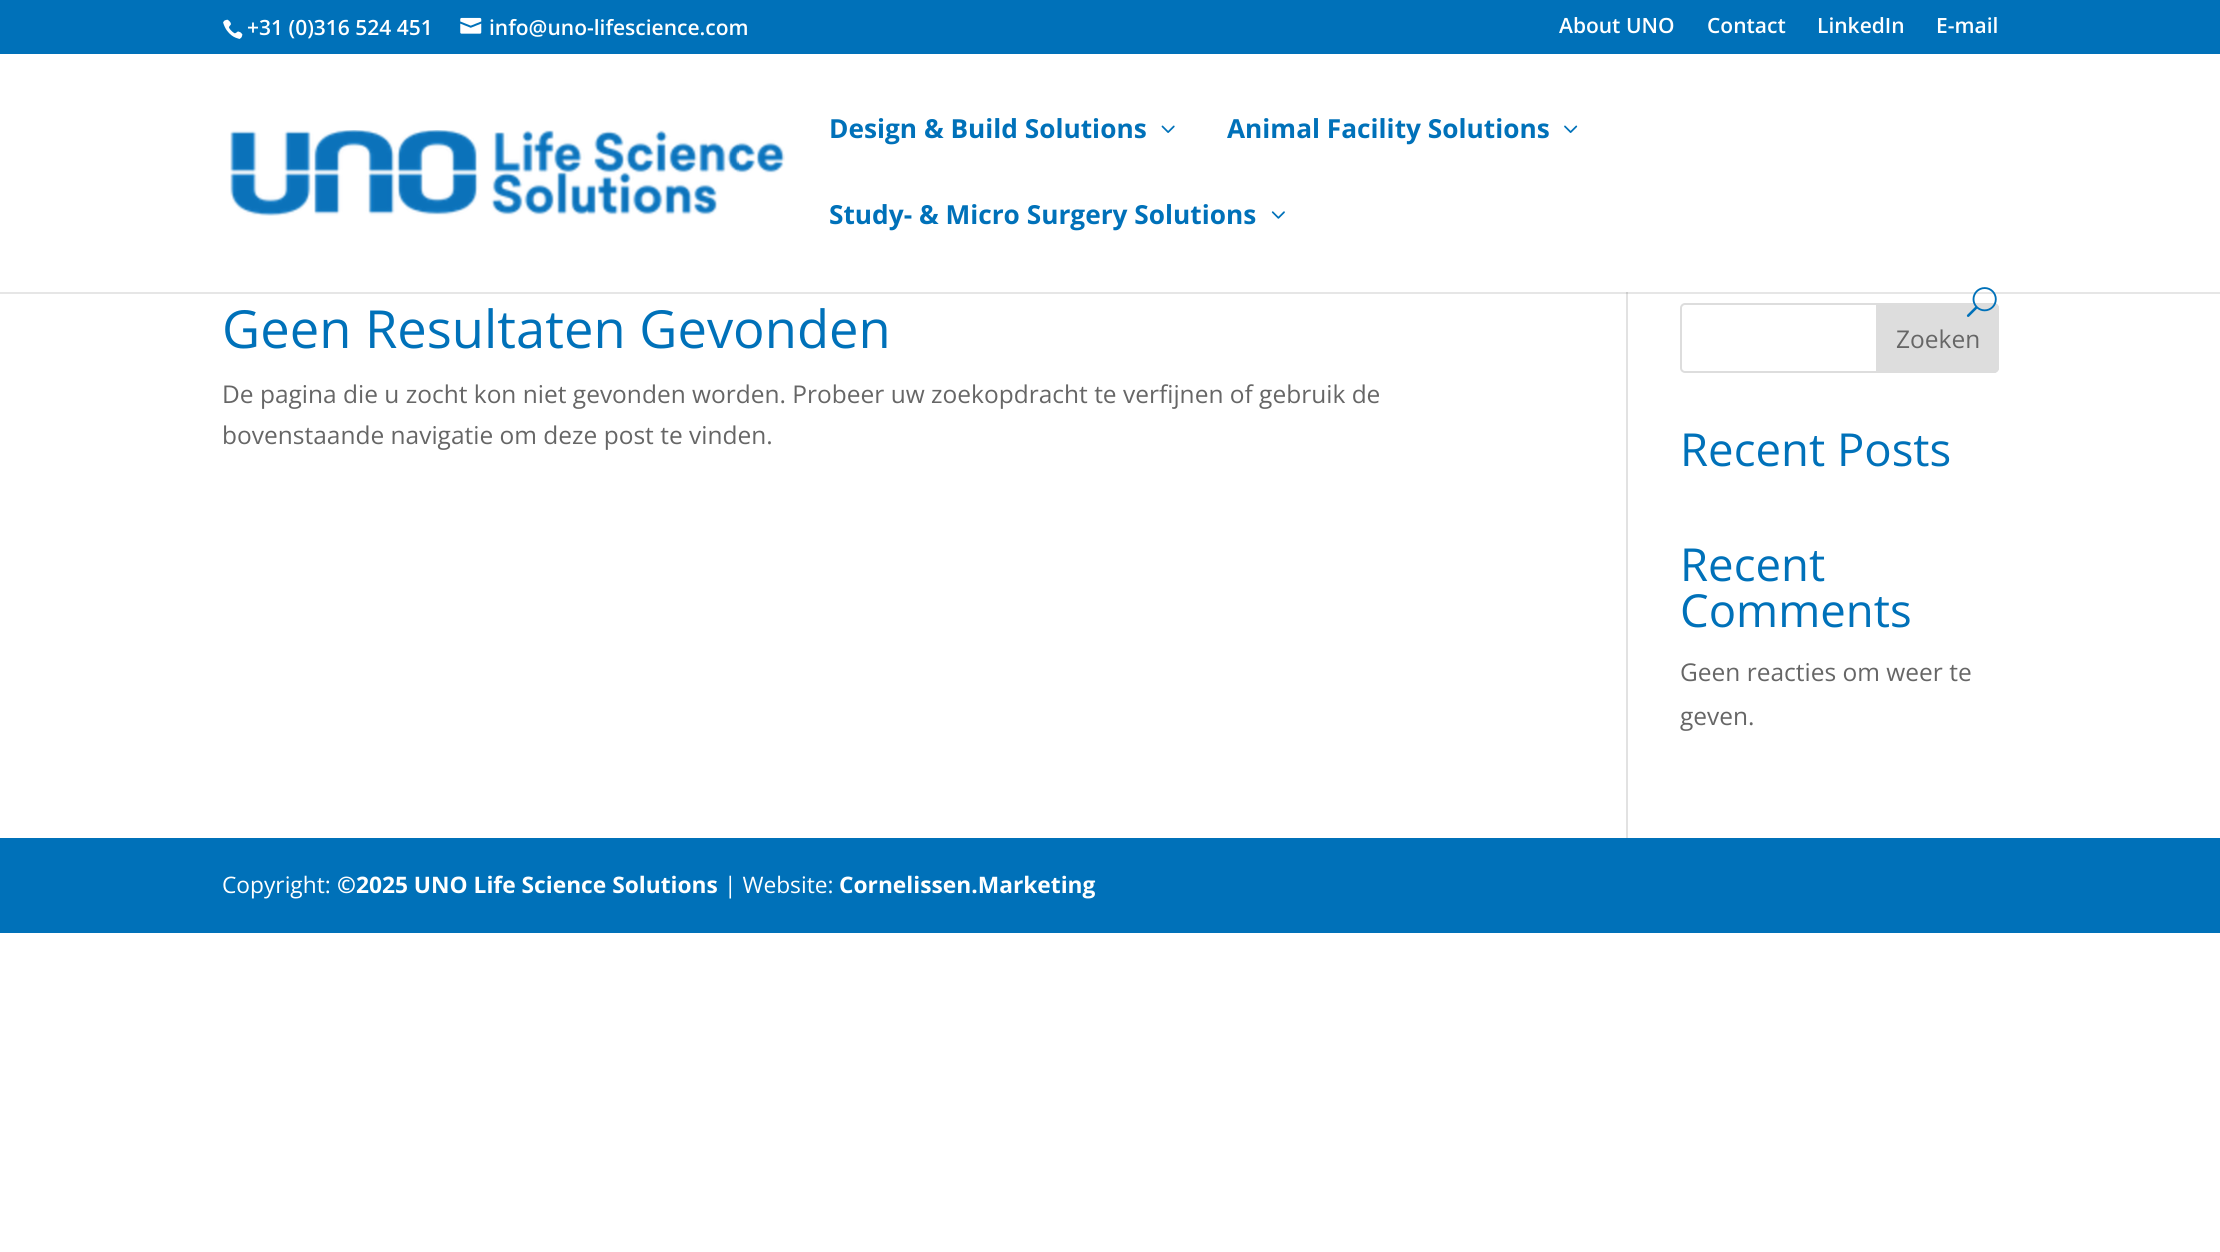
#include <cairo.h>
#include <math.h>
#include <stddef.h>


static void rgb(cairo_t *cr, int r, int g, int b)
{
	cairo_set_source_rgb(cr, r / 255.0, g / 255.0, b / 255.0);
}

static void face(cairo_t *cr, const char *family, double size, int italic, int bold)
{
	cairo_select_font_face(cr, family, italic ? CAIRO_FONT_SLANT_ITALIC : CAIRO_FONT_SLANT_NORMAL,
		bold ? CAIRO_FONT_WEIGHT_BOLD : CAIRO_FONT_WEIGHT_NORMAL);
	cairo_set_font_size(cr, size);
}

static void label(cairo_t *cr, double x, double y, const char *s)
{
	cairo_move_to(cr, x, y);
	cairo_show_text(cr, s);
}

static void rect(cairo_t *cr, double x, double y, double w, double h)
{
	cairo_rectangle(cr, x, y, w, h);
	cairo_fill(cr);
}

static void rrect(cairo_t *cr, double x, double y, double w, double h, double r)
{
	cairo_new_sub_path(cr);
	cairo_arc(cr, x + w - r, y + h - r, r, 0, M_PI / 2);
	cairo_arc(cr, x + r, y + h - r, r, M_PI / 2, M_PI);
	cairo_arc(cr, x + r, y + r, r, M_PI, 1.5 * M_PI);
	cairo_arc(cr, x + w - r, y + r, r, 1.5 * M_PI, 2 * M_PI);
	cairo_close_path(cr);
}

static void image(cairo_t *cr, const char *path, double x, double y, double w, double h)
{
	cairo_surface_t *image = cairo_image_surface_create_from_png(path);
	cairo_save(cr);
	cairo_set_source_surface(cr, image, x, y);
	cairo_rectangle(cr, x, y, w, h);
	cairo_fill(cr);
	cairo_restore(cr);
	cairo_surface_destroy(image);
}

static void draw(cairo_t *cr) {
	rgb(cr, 255, 255, 255);
	cairo_paint(cr);
	rgb(cr, 0, 113, 185);
	rect(cr, 0, 0, 2220, 54);
	image(cr, "image0.png", 223, 19, 20, 20);
	face(cr, "Open Sans SemiBold", 21, 0, 0);
	rgb(cr, 255, 255, 255);
	label(cr, 247, 35, "+31 (0)316 524 451");
	image(cr, "image1.png", 460, 17, 22, 17);
	label(cr, 489, 35, "info@uno-lifescience.com");
	label(cr, 1559, 33, "About UNO");
	label(cr, 1707, 33, "Contact");
	label(cr, 1817, 33, "LinkedIn");
	label(cr, 1936, 33, "E-mail");
	rgb(cr, 226, 226, 226);
	rect(cr, 1626, 292, 2, 546);
	cairo_set_source_rgba(cr, 0, 0, 0, 0.1);
	cairo_new_path(cr);
	cairo_move_to(cr, 0, 292);
	cairo_line_to(cr, 0, 294);
	cairo_line_to(cr, 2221, 294);
	cairo_line_to(cr, 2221, 56);
	cairo_line_to(cr, 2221, 292);
	cairo_close_path(cr);
	cairo_fill(cr);
	image(cr, "image2.png", 230, 130, 555, 86);
	face(cr, "Open Sans", 26.25, 0, 1);
	rgb(cr, 0, 113, 185);
	label(cr, 829, 138, "Design & Build Solutions");
	image(cr, "image3.png", 1161, 125, 14, 8);
	label(cr, 1227, 138, "Animal Facility Solutions");
	image(cr, "image4.png", 1564, 125, 14, 8);
	label(cr, 829, 224, "Study- & Micro Surgery Solutions");
	image(cr, "image5.png", 1271, 211, 14, 8);
	rrect(cr, 1681, 304, 317, 68, 4);
	rgb(cr, 221, 221, 221);
	cairo_stroke(cr);
	cairo_new_path(cr);
	cairo_move_to(cr, 1877, 304);
	cairo_line_to(cr, 1994, 304);
	cairo_curve_to(cr, 1996, 304, 1998, 306, 1998, 308);
	cairo_line_to(cr, 1998, 368);
	cairo_curve_to(cr, 1998, 370, 1996, 372, 1994, 372);
	cairo_line_to(cr, 1877, 372);
	cairo_close_path(cr);
	cairo_fill_preserve(cr);
	cairo_stroke(cr);
	image(cr, "image6.png", 1966, 287, 31, 30);
	face(cr, "Open Sans", 52.5, 0, 0);
	rgb(cr, 0, 113, 185);
	label(cr, 222, 348, "Geen Resultaten Gevonden");
	face(cr, "Open Sans", 24.5, 0, 0);
	rgb(cr, 102, 102, 102);
	label(cr, 222, 403, "De pagina die u zocht kon niet gevonden worden. Probeer uw zoekopdracht te verfijnen of gebruik de");
	label(cr, 222, 444, "bovenstaande navigatie om deze post te vinden.");
	label(cr, 1896, 348, "Zoeken");
	face(cr, "Open Sans", 45.5, 0, 0);
	rgb(cr, 0, 113, 185);
	label(cr, 1680, 466, "Recent Posts");
	label(cr, 1680, 581, "Recent");
	label(cr, 1680, 627, "Comments");
	face(cr, "Open Sans", 24.5, 0, 0);
	rgb(cr, 102, 102, 102);
	label(cr, 1680, 681, "Geen reacties om weer te");
	label(cr, 1680, 725, "geven.");
	rgb(cr, 0, 113, 185);
	rect(cr, 0, 838, 2220, 95);
	face(cr, "Open Sans", 22.75, 0, 0);
	rgb(cr, 255, 255, 255);
	label(cr, 222, 893, "Copyright:");
	face(cr, "Open Sans", 22.75, 0, 1);
	label(cr, 337, 893, "©2025 UNO Life Science Solutions");
	face(cr, "Open Sans", 22.75, 0, 0);
	label(cr, 724, 893, "| Website:");
	face(cr, "Open Sans", 22.75, 0, 1);
	label(cr, 839, 893, "Cornelissen.Marketing");
}

int main(void) {
	cairo_surface_t *surface = cairo_image_surface_create(CAIRO_FORMAT_RGB24, 2220, 1252);
	cairo_t *cr = cairo_create(surface);
	cairo_font_options_t *options = cairo_font_options_create();
	cairo_font_options_set_hint_metrics(options, CAIRO_HINT_METRICS_OFF);
	cairo_font_options_set_hint_style(options, CAIRO_HINT_STYLE_NONE);
	cairo_set_font_options(cr, options);
	cairo_set_miter_limit(cr, 4);
	draw(cr);
	cairo_surface_write_to_png(surface, "render.png");
	cairo_font_options_destroy(options);
	cairo_destroy(cr);
	cairo_surface_destroy(surface);
	return 0;
}
